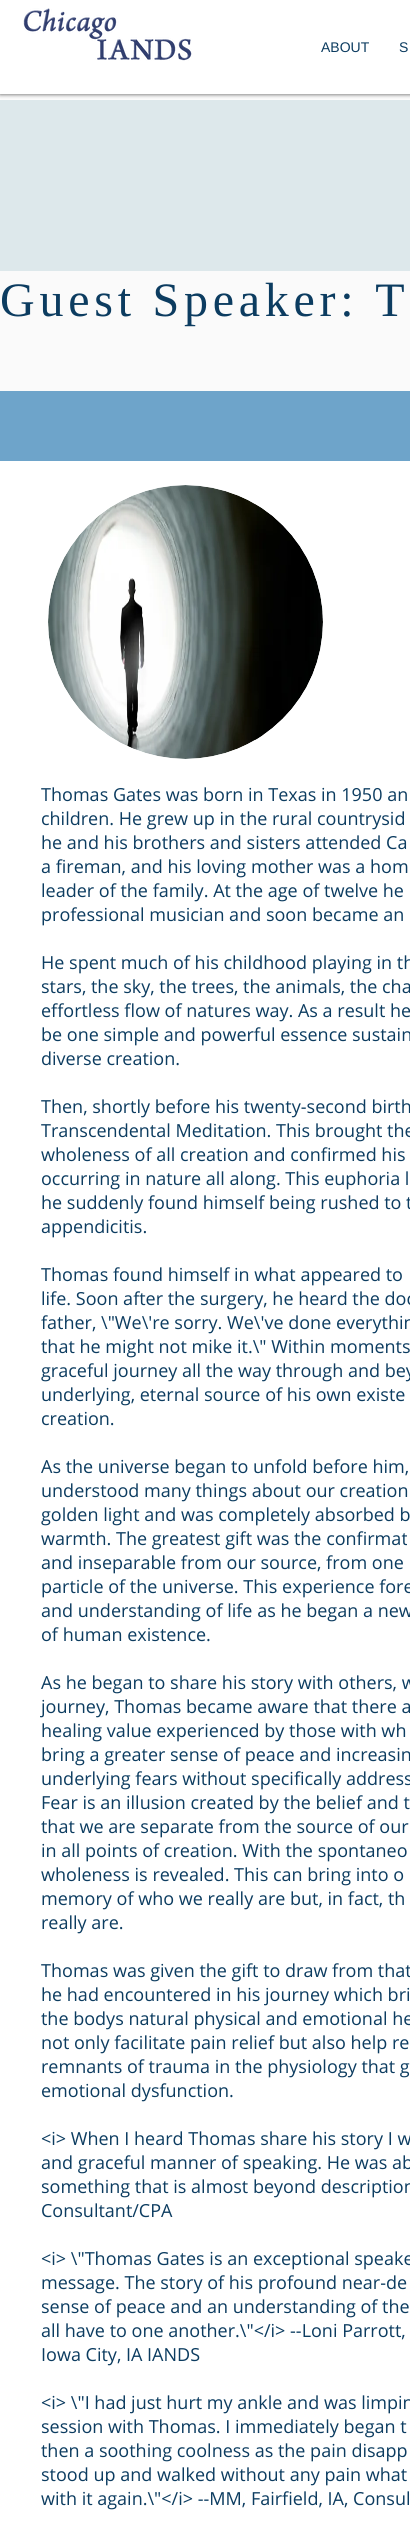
#include <cairo.h>
#include <math.h>
#include <stddef.h>


static void rgb(cairo_t *cr, int r, int g, int b)
{
	cairo_set_source_rgb(cr, r / 255.0, g / 255.0, b / 255.0);
}

static void face(cairo_t *cr, const char *family, double size, int italic, int bold)
{
	cairo_select_font_face(cr, family, italic ? CAIRO_FONT_SLANT_ITALIC : CAIRO_FONT_SLANT_NORMAL,
		bold ? CAIRO_FONT_WEIGHT_BOLD : CAIRO_FONT_WEIGHT_NORMAL);
	cairo_set_font_size(cr, size);
}

static void label(cairo_t *cr, double x, double y, const char *s)
{
	cairo_move_to(cr, x, y);
	cairo_show_text(cr, s);
}

static void tracked(cairo_t *cr, double x, double y, const char *s, double letter, double word)
{
	cairo_move_to(cr, x, y);
	while (*s) {
		char ch[5] = {0};
		int n = 0;
		do ch[n++] = *s++; while ((*s & 0xC0) == 0x80);
		cairo_show_text(cr, ch);
		cairo_rel_move_to(cr, letter + word * (*ch == ' '), 0);
	}
}

static void rect(cairo_t *cr, double x, double y, double w, double h)
{
	cairo_rectangle(cr, x, y, w, h);
	cairo_fill(cr);
}

static void rrect(cairo_t *cr, double x, double y, double w, double h, double r)
{
	cairo_new_sub_path(cr);
	cairo_arc(cr, x + w - r, y + h - r, r, 0, M_PI / 2);
	cairo_arc(cr, x + r, y + h - r, r, M_PI / 2, M_PI);
	cairo_arc(cr, x + r, y + r, r, M_PI, 1.5 * M_PI);
	cairo_arc(cr, x + w - r, y + r, r, 1.5 * M_PI, 2 * M_PI);
	cairo_close_path(cr);
}

static void soft_shadow(cairo_t *cr, double x, double y, double w, double h, double r, double blur, double alpha)
{
	cairo_push_group_with_content(cr, CAIRO_CONTENT_ALPHA);
	cairo_set_operator(cr, CAIRO_OPERATOR_SOURCE);
	for (int i = 15; i >= -15 && fmin(w, h) + blur * i / 3 > 0; i -= 2) {
		double e = blur * i / 6;
		cairo_set_source_rgba(cr, 0, 0, 0, alpha * erfc((i - 1) / 8.5) / 2);
		rrect(cr, x - e, y - e, w + 2 * e, h + 2 * e, fmax(0, fmin(r + e + blur * .6, fmin(w, h) / 2 + e)));
		cairo_fill(cr);
	}
	cairo_pattern_t *soft = cairo_pop_group(cr);
	cairo_mask(cr, soft);
	cairo_pattern_destroy(soft);
}

static void image(cairo_t *cr, const char *path, double x, double y, double w, double h)
{
	cairo_surface_t *image = cairo_image_surface_create_from_png(path);
	cairo_save(cr);
	cairo_set_source_surface(cr, image, x, y);
	cairo_rectangle(cr, x, y, w, h);
	cairo_fill(cr);
	cairo_restore(cr);
	cairo_surface_destroy(image);
}

static void draw(cairo_t *cr) {
	rgb(cr, 255, 255, 255);
	cairo_paint(cr);
	rgb(cr, 221, 232, 235);
	rect(cr, 0, 100, 410, 171);
	rgb(cr, 0, 0, 0);
	soft_shadow(cr, 0, 0, 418, 94, 0, 2.5, 0.7);
	rgb(cr, 255, 255, 255);
	rect(cr, 0, 0, 410, 94);
	image(cr, "image0.png", 23, 8, 169, 53);
	face(cr, "Liberation Sans", 14, 0, 0);
	rgb(cr, 12, 60, 96);
	label(cr, 321, 52, "ABOUT");
	label(cr, 399, 52, "S");
	rgb(cr, 250, 250, 250);
	rect(cr, 0, 271, 410, 120);
	face(cr, "Liberation Serif", 48, 0, 0);
	rgb(cr, 12, 60, 96);
	tracked(cr, 0, 316, "Guest Speaker: T", 4.75, 0);
	rgb(cr, 110, 164, 202);
	rect(cr, 0, 391, 410, 70);
	image(cr, "image1.png", 48, 485, 275, 274);
	face(cr, "Open Sans", 18, 0, 0);
	rgb(cr, 12, 60, 96);
	label(cr, 41, 801, "Thomas Gates was born in Texas in 1950 an");
	label(cr, 41, 825, "children. He grew up in the rural countrysid");
	label(cr, 41, 849, "he and his brothers and sisters attended Ca");
	label(cr, 41, 873, "a fireman, and his loving mother was a hom");
	label(cr, 41, 897, "leader of the family. At the age of twelve he");
	label(cr, 41, 921, "professional musician and soon became an");
	label(cr, 41, 969, "He spent much of his childhood playing in th");
	label(cr, 41, 993, "stars, the sky, the trees, the animals, the cha");
	label(cr, 41, 1017, "effortless flow of natures way. As a result he");
	label(cr, 41, 1041, "be one simple and powerful essence sustain");
	label(cr, 41, 1065, "diverse creation.");
	label(cr, 41, 1113, "Then, shortly before his twenty-second birth");
	label(cr, 41, 1137, "Transcendental Meditation. This brought the");
	label(cr, 41, 1161, "wholeness of all creation and confirmed his");
	label(cr, 41, 1185, "occurring in nature all along. This euphoria l");
	label(cr, 41, 1209, "he suddenly found himself being rushed to t");
	label(cr, 41, 1233, "appendicitis.");
	label(cr, 41, 1281, "Thomas found himself in what appeared to");
	label(cr, 41, 1305, "life. Soon after the surgery, he heard the doc");
	label(cr, 41, 1329, "father, \\\"We\\'re sorry. We\\'ve done everythin");
	label(cr, 41, 1353, "that he might not mike it.\\\" Within moments");
	label(cr, 41, 1377, "graceful journey all the way through and bey");
	label(cr, 41, 1401, "underlying, eternal source of his own existe");
	label(cr, 41, 1425, "creation.");
	label(cr, 41, 1473, "As the universe began to unfold before him,");
	label(cr, 41, 1497, "understood many things about our creation");
	label(cr, 41, 1521, "golden light and was completely absorbed b");
	label(cr, 41, 1545, "warmth. The greatest gift was the confirmat");
	label(cr, 41, 1569, "and inseparable from our source, from one");
	label(cr, 41, 1593, "particle of the universe. This experience fore");
	label(cr, 41, 1617, "and understanding of life as he began a new");
	label(cr, 41, 1641, "of human existence.");
	label(cr, 41, 1689, "As he began to share his story with others, w");
	label(cr, 41, 1713, "journey, Thomas became aware that there a");
	label(cr, 41, 1737, "healing value experienced by those with wh");
	label(cr, 41, 1761, "bring a greater sense of peace and increasin");
	label(cr, 41, 1785, "underlying fears without specifically address");
	label(cr, 41, 1809, "Fear is an illusion created by the belief and t");
	label(cr, 41, 1833, "that we are separate from the source of our");
	label(cr, 41, 1857, "in all points of creation. With the spontaneo");
	label(cr, 41, 1881, "wholeness is revealed. This can bring into o");
	label(cr, 41, 1905, "memory of who we really are but, in fact, th");
	label(cr, 41, 1929, "really are.");
	label(cr, 41, 1977, "Thomas was given the gift to draw from that");
	label(cr, 41, 2001, "he had encountered in his journey which bri");
	label(cr, 41, 2025, "the bodys natural physical and emotional he");
	label(cr, 41, 2049, "not only facilitate pain relief but also help re");
	label(cr, 41, 2073, "remnants of trauma in the physiology that g");
	label(cr, 41, 2097, "emotional dysfunction.");
	label(cr, 41, 2145, "<i> When I heard Thomas share his story I w");
	label(cr, 41, 2169, "and graceful manner of speaking. He was ab");
	label(cr, 41, 2193, "something that is almost beyond description");
	label(cr, 41, 2217, "Consultant/CPA");
	label(cr, 41, 2265, "<i> \\\"Thomas Gates is an exceptional speake");
	label(cr, 41, 2289, "message. The story of his profound near-de");
	label(cr, 41, 2313, "sense of peace and an understanding of the");
	label(cr, 41, 2337, "all have to one another.\\\"</i> --Loni Parrott,");
	label(cr, 41, 2361, "Iowa City, IA IANDS");
	label(cr, 41, 2409, "<i> \\\"I had just hurt my ankle and was limpin");
	label(cr, 41, 2433, "session with Thomas. I immediately began t");
	label(cr, 41, 2457, "then a soothing coolness as the pain disapp");
	label(cr, 41, 2481, "stood up and walked without any pain what");
	label(cr, 41, 2505, "with it again.\\\"</i> --MM, Fairfield, IA, Consul");
}

int main(void) {
	cairo_surface_t *surface = cairo_image_surface_create(CAIRO_FORMAT_RGB24, 410, 2535);
	cairo_t *cr = cairo_create(surface);
	cairo_font_options_t *options = cairo_font_options_create();
	cairo_font_options_set_hint_metrics(options, CAIRO_HINT_METRICS_OFF);
	cairo_font_options_set_hint_style(options, CAIRO_HINT_STYLE_NONE);
	cairo_set_font_options(cr, options);
	cairo_set_miter_limit(cr, 4);
	draw(cr);
	cairo_surface_write_to_png(surface, "render.png");
	cairo_font_options_destroy(options);
	cairo_destroy(cr);
	cairo_surface_destroy(surface);
	return 0;
}
